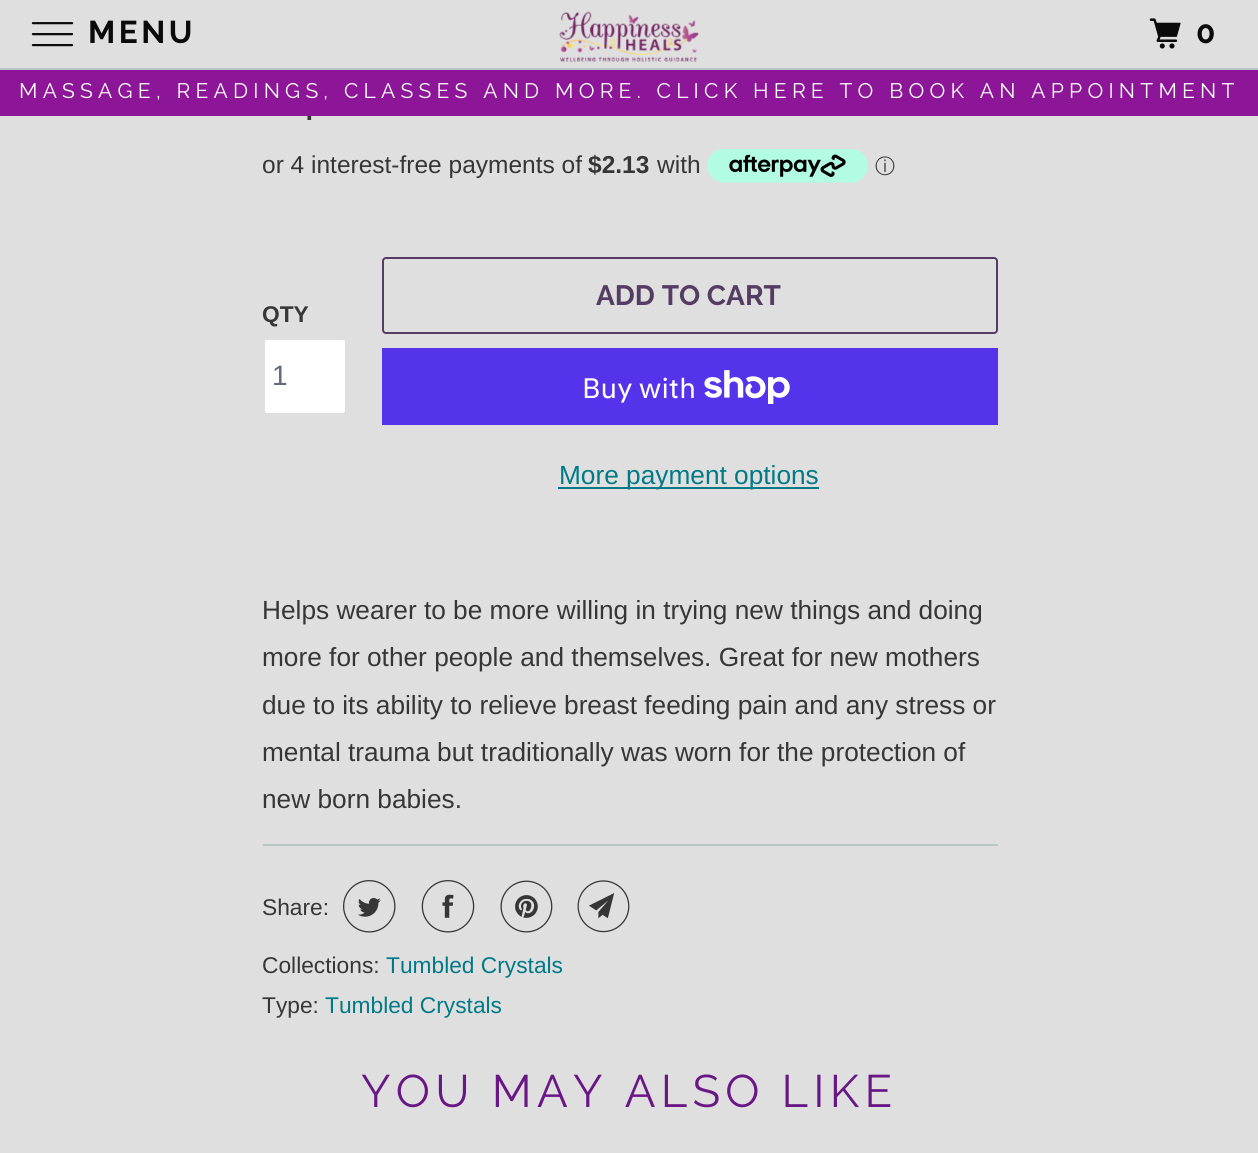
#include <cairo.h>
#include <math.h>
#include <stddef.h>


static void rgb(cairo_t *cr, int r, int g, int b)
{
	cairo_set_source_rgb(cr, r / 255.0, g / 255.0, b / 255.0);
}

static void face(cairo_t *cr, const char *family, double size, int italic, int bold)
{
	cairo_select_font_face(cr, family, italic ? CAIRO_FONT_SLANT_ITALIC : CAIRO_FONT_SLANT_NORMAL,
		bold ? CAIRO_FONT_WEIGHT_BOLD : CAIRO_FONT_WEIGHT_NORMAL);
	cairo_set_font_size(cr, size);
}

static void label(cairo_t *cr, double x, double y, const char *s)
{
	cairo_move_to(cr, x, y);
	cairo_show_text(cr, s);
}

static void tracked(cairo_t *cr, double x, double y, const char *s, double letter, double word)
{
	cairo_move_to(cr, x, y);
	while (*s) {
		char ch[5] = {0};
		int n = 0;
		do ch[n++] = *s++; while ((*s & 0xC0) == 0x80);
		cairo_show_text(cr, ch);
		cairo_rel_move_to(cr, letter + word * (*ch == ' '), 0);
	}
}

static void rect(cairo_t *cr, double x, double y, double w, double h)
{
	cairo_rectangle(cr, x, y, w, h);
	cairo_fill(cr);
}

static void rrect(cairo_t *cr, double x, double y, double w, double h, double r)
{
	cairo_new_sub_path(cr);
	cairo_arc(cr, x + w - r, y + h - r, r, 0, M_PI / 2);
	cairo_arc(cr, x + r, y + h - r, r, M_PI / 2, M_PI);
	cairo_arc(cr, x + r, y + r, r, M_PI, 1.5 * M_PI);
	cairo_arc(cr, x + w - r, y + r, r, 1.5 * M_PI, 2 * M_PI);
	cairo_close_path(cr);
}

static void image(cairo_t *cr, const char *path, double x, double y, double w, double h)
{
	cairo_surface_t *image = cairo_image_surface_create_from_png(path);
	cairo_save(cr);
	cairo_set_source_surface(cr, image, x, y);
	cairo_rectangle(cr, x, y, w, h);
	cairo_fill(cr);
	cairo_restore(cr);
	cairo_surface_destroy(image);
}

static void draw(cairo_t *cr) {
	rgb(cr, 223, 223, 223);
	cairo_paint(cr);
	rgb(cr, 186, 199, 199);
	rect(cr, 0, 68, 1258, 2);
	image(cr, "image0.png", 31, 22, 43, 25);
	face(cr, "Raleway", 31.5, 0, 1);
	rgb(cr, 11, 11, 11);
	tracked(cr, 88, 43, "MENU", 3.5, 0);
	image(cr, "image1.png", 559, 11, 140, 51);
	image(cr, "image2.png", 1149, 18, 32, 31);
	tracked(cr, 1196, 43, "0", 3.5, 0);
	face(cr, "Liberation Sans", 38, 0, 0);
	rgb(cr, 54, 54, 54);
	label(cr, 304, 120, ".");
	rgb(cr, 141, 22, 152);
	rect(cr, 0, 70, 1258, 46);
	face(cr, "Raleway", 21, 0, 0);
	rgb(cr, 255, 255, 255);
	tracked(cr, 19, 98, "MASSAGE, READINGS, CLASSES AND MORE. CLICK HERE TO BOOK AN APPOINTMENT", 5.25, 0);
	face(cr, "Liberation Sans", 24.5, 0, 0);
	rgb(cr, 54, 54, 54);
	label(cr, 262, 173, "or 4 interest-free payments of");
	face(cr, "Liberation Sans", 24.5, 0, 1);
	label(cr, 588, 173, "$2.13");
	face(cr, "Liberation Sans", 24.5, 0, 0);
	label(cr, 657, 173, "with");
	image(cr, "image3.png", 707, 149, 161, 34);
	face(cr, "WenQuanYi Zen Hei Medium", 20, 0, 0);
	label(cr, 875, 173, "ⓘ");
	face(cr, "Liberation Sans", 22.75, 0, 1);
	label(cr, 262, 322, "QTY");
	rgb(cr, 255, 255, 255);
	rrect(cr, 264, 339, 82, 75, 3);
	cairo_fill_preserve(cr);
	rgb(cr, 223, 223, 223);
	cairo_stroke(cr);
	face(cr, "Liberation Sans", 28, 0, 0);
	rgb(cr, 95, 106, 125);
	label(cr, 272, 385, "1");
	rrect(cr, 383, 258, 614, 75, 3);
	rgb(cr, 84, 60, 99);
	cairo_stroke(cr);
	face(cr, "Raleway", 28, 0, 1);
	label(cr, 596, 305, "ADD TO CART");
	rgb(cr, 84, 51, 235);
	rect(cr, 382, 348, 616, 77);
	face(cr, "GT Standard", 28, 0, 0);
	rgb(cr, 255, 255, 255);
	label(cr, 582, 398, "Buy with");
	image(cr, "image4.png", 704, 370, 86, 34);
	rgb(cr, 0, 122, 135);
	rect(cr, 558, 487, 261, 2);
	face(cr, "Liberation Sans", 26.25, 0, 0);
	label(cr, 559, 484, "More payment options");
	rgb(cr, 54, 54, 54);
	label(cr, 262, 619, "Helps wearer to be more willing in trying new things and doing");
	label(cr, 262, 666, "more for other people and themselves. Great for new mothers");
	label(cr, 262, 714, "due to its ability to relieve breast feeding pain and any stress or");
	label(cr, 262, 761, "mental trauma but traditionally was worn for the protection of");
	label(cr, 262, 808, "new born babies.");
	rgb(cr, 184, 198, 198);
	rect(cr, 263, 844, 735, 2);
	face(cr, "Liberation Sans", 22.75, 0, 0);
	rgb(cr, 54, 54, 54);
	label(cr, 262, 915, "Share:");
	image(cr, "image5.png", 343, 880, 53, 53);
	image(cr, "image6.png", 421, 880, 54, 53);
	image(cr, "image7.png", 500, 880, 53, 53);
	image(cr, "image8.png", 577, 880, 53, 53);
	label(cr, 262, 973, "Collections:");
	rgb(cr, 0, 122, 135);
	label(cr, 386, 973, "Tumbled Crystals");
	rgb(cr, 54, 54, 54);
	label(cr, 262, 1013, "Type:");
	rgb(cr, 0, 122, 135);
	label(cr, 325, 1013, "Tumbled Crystals");
	face(cr, "Raleway", 45.5, 0, 0);
	rgb(cr, 106, 23, 134);
	tracked(cr, 361, 1107, "YOU MAY ALSO LIKE", 5.25, 0);
}

int main(void) {
	cairo_surface_t *surface = cairo_image_surface_create(CAIRO_FORMAT_RGB24, 1258, 1153);
	cairo_t *cr = cairo_create(surface);
	cairo_font_options_t *options = cairo_font_options_create();
	cairo_font_options_set_hint_metrics(options, CAIRO_HINT_METRICS_OFF);
	cairo_font_options_set_hint_style(options, CAIRO_HINT_STYLE_NONE);
	cairo_set_font_options(cr, options);
	cairo_set_miter_limit(cr, 4);
	draw(cr);
	cairo_surface_write_to_png(surface, "render.png");
	cairo_font_options_destroy(options);
	cairo_destroy(cr);
	cairo_surface_destroy(surface);
	return 0;
}
